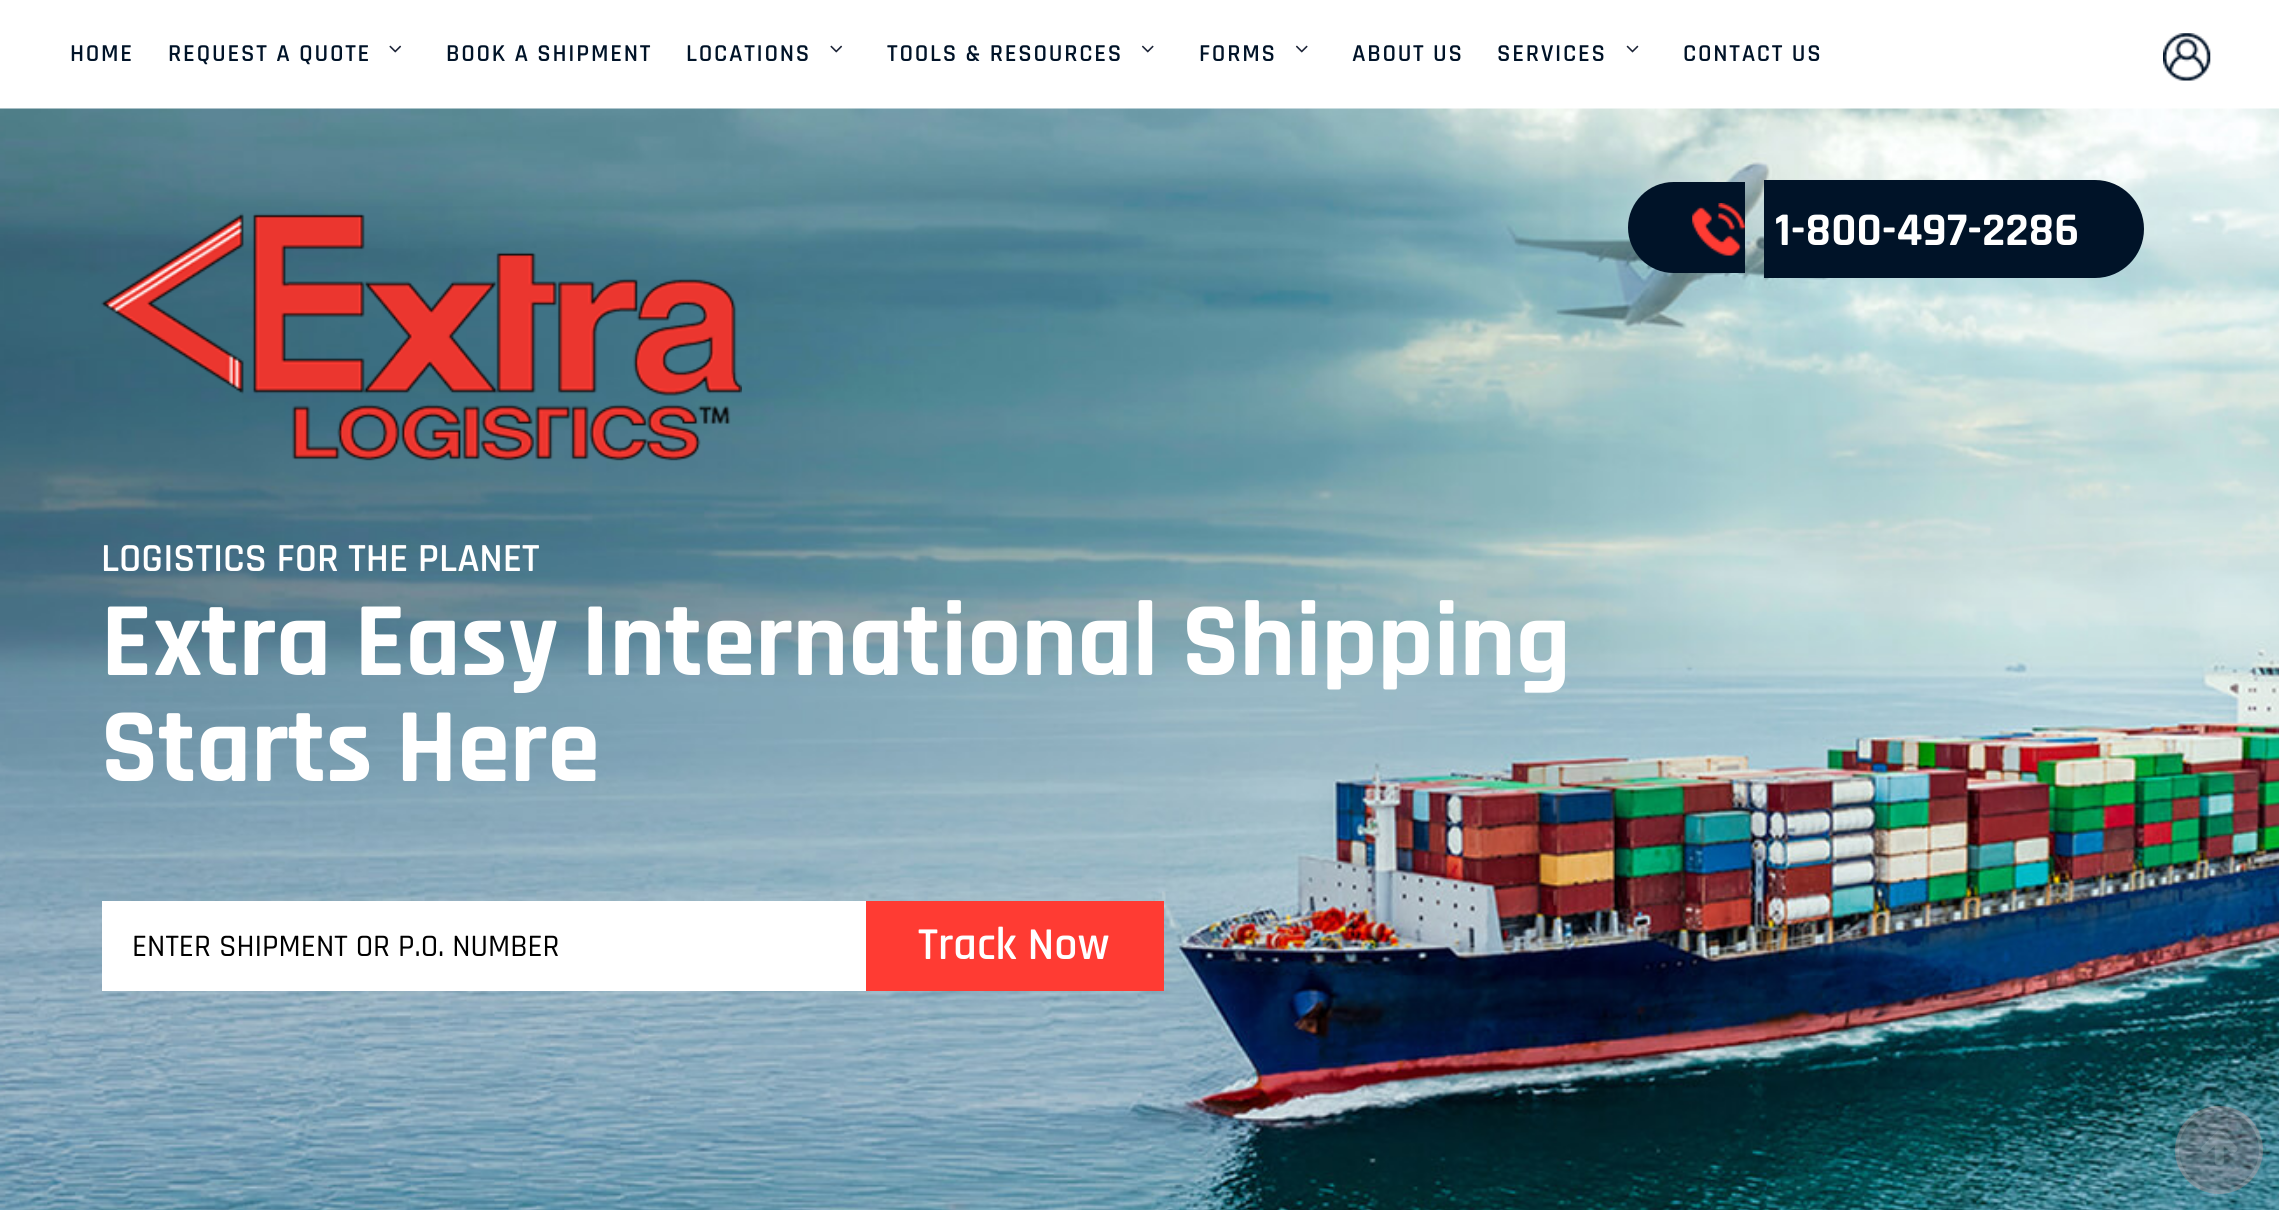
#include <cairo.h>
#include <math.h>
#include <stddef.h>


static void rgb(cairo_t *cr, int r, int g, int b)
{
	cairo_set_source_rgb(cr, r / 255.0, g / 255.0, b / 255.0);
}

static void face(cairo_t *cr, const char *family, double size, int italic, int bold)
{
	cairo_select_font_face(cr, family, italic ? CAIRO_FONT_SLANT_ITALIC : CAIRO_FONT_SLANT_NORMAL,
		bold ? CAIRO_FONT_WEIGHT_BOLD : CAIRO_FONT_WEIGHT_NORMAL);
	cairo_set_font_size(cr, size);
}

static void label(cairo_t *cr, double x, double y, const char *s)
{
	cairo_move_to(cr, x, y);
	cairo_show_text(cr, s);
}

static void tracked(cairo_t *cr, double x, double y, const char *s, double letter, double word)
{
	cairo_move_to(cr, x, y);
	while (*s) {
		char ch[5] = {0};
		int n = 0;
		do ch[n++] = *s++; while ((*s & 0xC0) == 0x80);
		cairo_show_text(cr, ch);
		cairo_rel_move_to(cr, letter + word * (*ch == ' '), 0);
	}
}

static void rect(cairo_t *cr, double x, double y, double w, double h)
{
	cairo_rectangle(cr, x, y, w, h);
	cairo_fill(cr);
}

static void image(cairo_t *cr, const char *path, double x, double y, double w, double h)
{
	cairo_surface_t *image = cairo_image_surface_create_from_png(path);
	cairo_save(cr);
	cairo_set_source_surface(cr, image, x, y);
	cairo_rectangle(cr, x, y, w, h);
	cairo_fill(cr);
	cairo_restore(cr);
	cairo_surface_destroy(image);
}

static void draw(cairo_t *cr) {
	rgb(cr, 255, 255, 255);
	cairo_paint(cr);
	face(cr, "Rajdhani SemiBold", 24.5, 0, 0);
	rgb(cr, 0, 19, 40);
	tracked(cr, 70, 61, "HOME", 1.75, 0);
	tracked(cr, 168, 61, "REQUEST A QUOTE", 1.75, 0);
	image(cr, "image0.png", 389, 45, 13, 8);
	tracked(cr, 446, 61, "BOOK A SHIPMENT", 1.75, 0);
	tracked(cr, 686, 61, "LOCATIONS", 1.75, 0);
	image(cr, "image0.png", 830, 45, 13, 8);
	tracked(cr, 887, 61, "TOOLS & RESOURCES", 1.75, 0);
	image(cr, "image1.png", 1141, 45, 13, 8);
	tracked(cr, 1199, 61, "FORMS", 1.75, 0);
	image(cr, "image1.png", 1295, 45, 13, 8);
	tracked(cr, 1352, 61, "ABOUT US", 1.75, 0);
	tracked(cr, 1497, 61, "SERVICES", 1.75, 0);
	image(cr, "image2.png", 1626, 45, 13, 8);
	tracked(cr, 1683, 61, "CONTACT US", 1.75, 0);
	image(cr, "image3.png", 2163, 33, 48, 48);
	image(cr, "image4.png", 0, 108, 2279, 1102);
	cairo_new_path(cr);
	cairo_move_to(cr, 1673.5, 182);
	cairo_line_to(cr, 1745, 182);
	cairo_line_to(cr, 1745, 273);
	cairo_line_to(cr, 1673.5, 273);
	cairo_curve_to(cr, 1648.5, 273, 1628, 252.5, 1628, 227.5);
	cairo_curve_to(cr, 1628, 202.5, 1648.5, 182, 1673.5, 182);
	cairo_close_path(cr);
	cairo_fill(cr);
	image(cr, "image5.png", 1692, 203, 53, 53);
	cairo_new_path(cr);
	cairo_move_to(cr, 1764, 180);
	cairo_line_to(cr, 2095, 180);
	cairo_curve_to(cr, 2122, 180, 2144, 202, 2144, 229);
	cairo_curve_to(cr, 2144, 256, 2122, 278, 2095, 278);
	cairo_line_to(cr, 1764, 278);
	cairo_close_path(cr);
	cairo_fill(cr);
	face(cr, "Rajdhani", 47.25, 0, 1);
	rgb(cr, 255, 255, 255);
	label(cr, 1775, 245, "1-800-497-2286");
	image(cr, "image6.png", 101, 213, 641, 248);
	face(cr, "Rajdhani SemiBold", 40.25, 0, 0);
	label(cr, 101, 571, "LOGISTICS FOR THE PLANET");
	face(cr, "Rajdhani", 106.5, 0, 1);
	label(cr, 101, 675, "Extra Easy International Shipping");
	label(cr, 101, 781, "Starts Here");
	rect(cr, 102, 901, 764, 90);
	face(cr, "Rajdhani Medium", 31.5, 0, 0);
	rgb(cr, 0, 0, 0);
	label(cr, 132, 956, "ENTER SHIPMENT OR P.O. NUMBER");
	rgb(cr, 255, 59, 51);
	rect(cr, 866, 901, 298, 90);
	face(cr, "Rajdhani SemiBold", 46, 0, 0);
	rgb(cr, 255, 255, 255);
	label(cr, 918, 959, "Track Now");
	cairo_set_source_rgba(cr, 1, 0.231, 0.2, 0.15);
	cairo_new_path(cr);
	cairo_arc(cr, 2219, 1150, 44, 0, 2 * M_PI);
	cairo_fill(cr);
	cairo_arc(cr, 2219, 1150, 42, 0, 2 * M_PI);
	cairo_set_source_rgba(cr, 1, 1, 1, 0.15);
	cairo_set_line_width(cr, 4);
	cairo_stroke(cr);
	image(cr, "image7.png", 2201, 1130, 37, 35);
}

int main(void) {
	cairo_surface_t *surface = cairo_image_surface_create(CAIRO_FORMAT_RGB24, 2279, 1210);
	cairo_t *cr = cairo_create(surface);
	cairo_font_options_t *options = cairo_font_options_create();
	cairo_font_options_set_hint_metrics(options, CAIRO_HINT_METRICS_OFF);
	cairo_font_options_set_hint_style(options, CAIRO_HINT_STYLE_NONE);
	cairo_set_font_options(cr, options);
	cairo_set_miter_limit(cr, 4);
	draw(cr);
	cairo_surface_write_to_png(surface, "render.png");
	cairo_font_options_destroy(options);
	cairo_destroy(cr);
	cairo_surface_destroy(surface);
	return 0;
}
